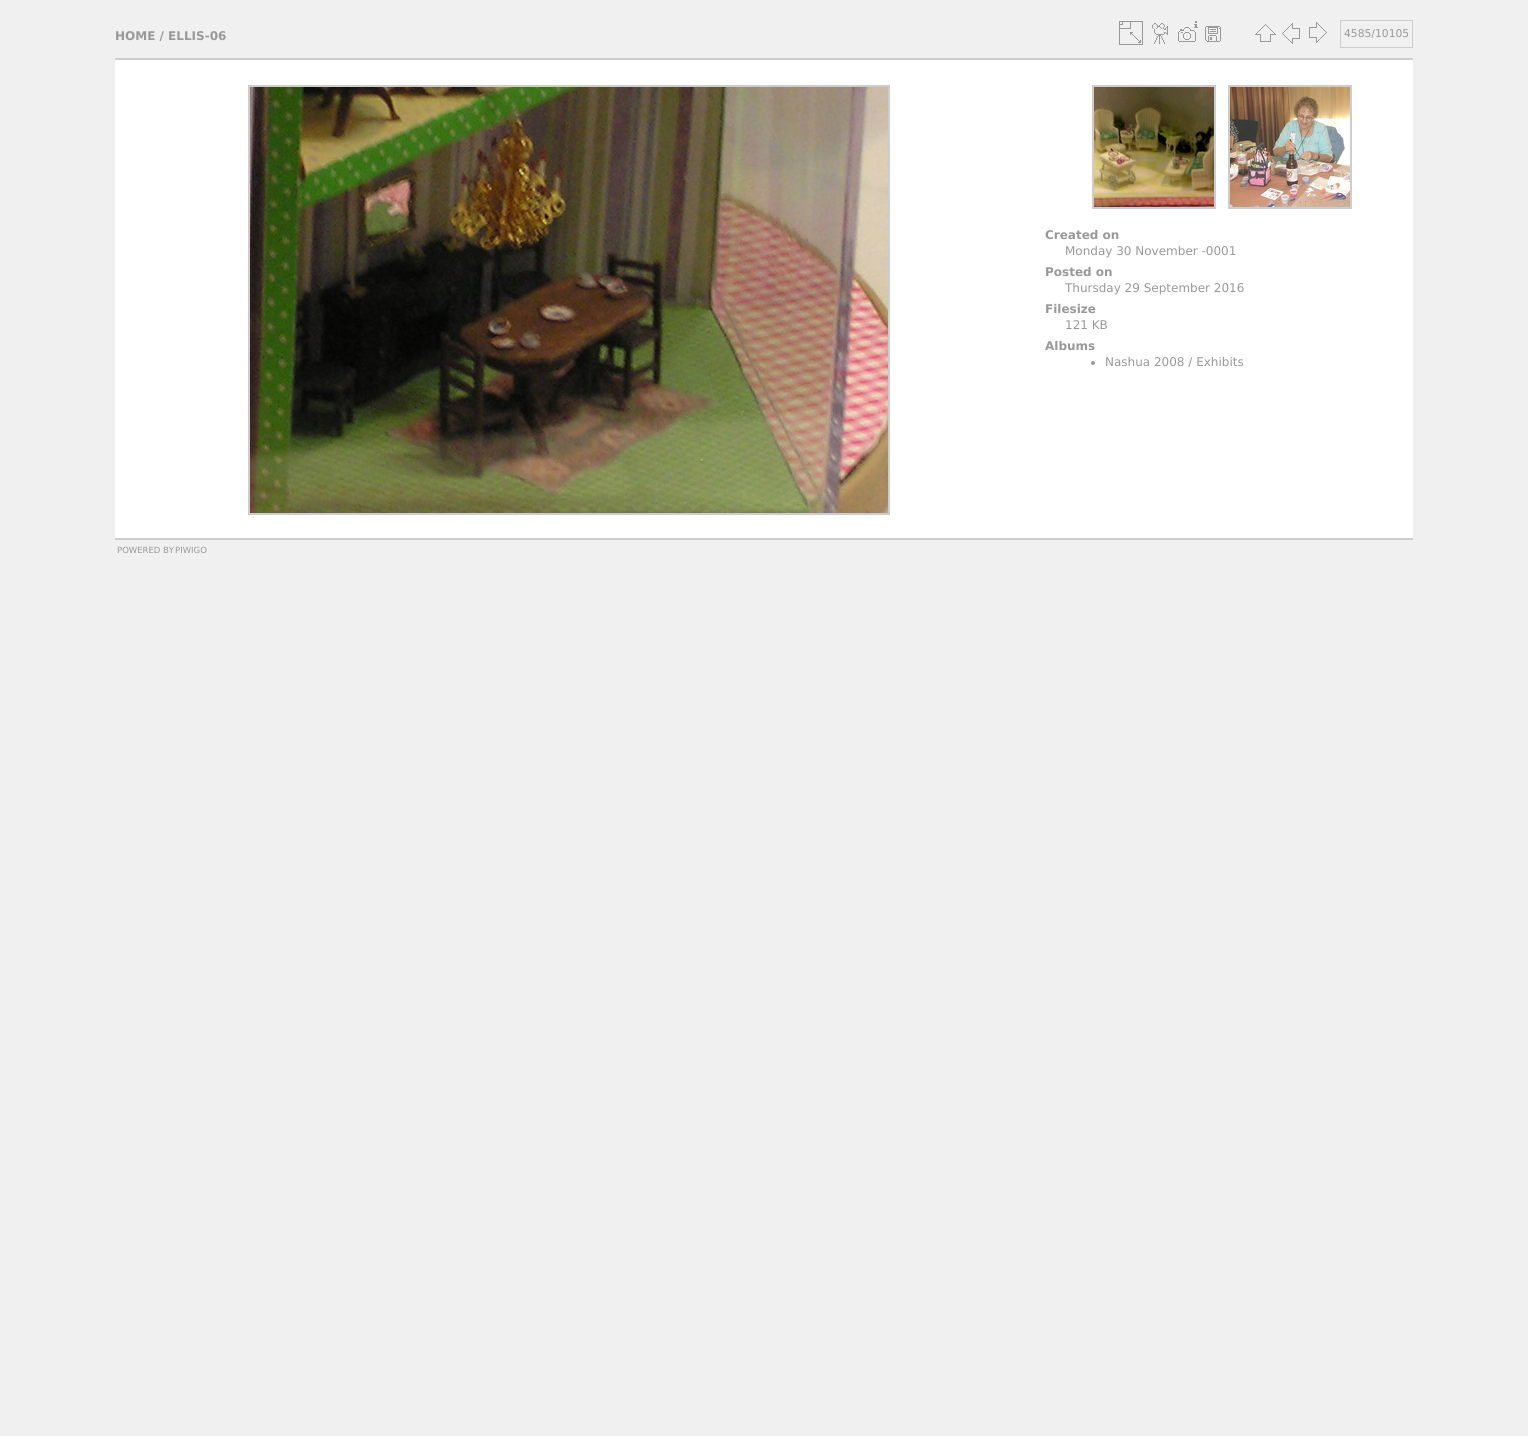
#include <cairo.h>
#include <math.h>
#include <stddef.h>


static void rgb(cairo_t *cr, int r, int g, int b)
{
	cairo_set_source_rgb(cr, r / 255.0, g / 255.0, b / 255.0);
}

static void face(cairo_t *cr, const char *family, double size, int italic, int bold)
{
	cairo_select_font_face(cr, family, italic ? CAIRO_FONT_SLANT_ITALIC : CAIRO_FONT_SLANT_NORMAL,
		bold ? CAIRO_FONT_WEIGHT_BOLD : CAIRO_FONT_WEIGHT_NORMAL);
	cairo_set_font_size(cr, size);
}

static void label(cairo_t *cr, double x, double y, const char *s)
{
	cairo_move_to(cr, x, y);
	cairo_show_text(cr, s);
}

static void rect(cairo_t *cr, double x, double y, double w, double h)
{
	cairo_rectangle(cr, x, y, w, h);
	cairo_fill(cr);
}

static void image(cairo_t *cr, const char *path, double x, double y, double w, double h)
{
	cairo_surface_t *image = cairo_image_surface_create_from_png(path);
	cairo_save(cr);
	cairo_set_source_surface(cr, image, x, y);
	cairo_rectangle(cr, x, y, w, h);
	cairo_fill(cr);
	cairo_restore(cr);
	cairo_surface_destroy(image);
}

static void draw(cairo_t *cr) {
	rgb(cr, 240, 240, 240);
	cairo_paint(cr);
	rgb(cr, 205, 205, 205);
	rect(cr, 115, 538, 1298, 2);
	face(cr, "DejaVu Sans", 12, 0, 1);
	rgb(cr, 153, 153, 153);
	label(cr, 115, 40, "HOME / ELLIS-06");
	image(cr, "image0.png", 1119, 21, 24, 24);
	image(cr, "image1.png", 1152, 23, 16, 21);
	image(cr, "image2.png", 1178, 21, 20, 21);
	image(cr, "image3.png", 1205, 26, 16, 16);
	image(cr, "image4.png", 1255, 24, 21, 18);
	image(cr, "image5.png", 1282, 23, 18, 21);
	image(cr, "image6.png", 1309, 22, 18, 21);
	cairo_rectangle(cr, 1340.5, 20.5, 72, 27);
	rgb(cr, 205, 205, 205);
	cairo_set_line_width(cr, 1);
	cairo_stroke(cr);
	face(cr, "DejaVu Sans", 10.75, 0, 0);
	rgb(cr, 153, 153, 153);
	label(cr, 1344, 37, "4585/10105");
	rgb(cr, 255, 255, 255);
	rect(cr, 115, 60, 1298, 478);
	rgb(cr, 205, 205, 205);
	rect(cr, 115, 58, 1298, 2);
	cairo_rectangle(cr, 249, 86, 640, 428);
	cairo_set_line_width(cr, 2);
	cairo_stroke(cr);
	image(cr, "image7.png", 250, 87, 638, 426);
	cairo_rectangle(cr, 1093, 86, 122, 122);
	cairo_stroke(cr);
	image(cr, "image8.png", 1094, 87, 120, 120);
	cairo_rectangle(cr, 1229, 86, 122, 122);
	cairo_stroke(cr);
	image(cr, "image9.png", 1230, 87, 120, 120);
	face(cr, "DejaVu Sans", 12, 0, 1);
	rgb(cr, 153, 153, 153);
	label(cr, 1045, 239, "Created on");
	face(cr, "DejaVu Sans", 12, 0, 0);
	label(cr, 1065, 255, "Monday 30 November -0001");
	face(cr, "DejaVu Sans", 12, 0, 1);
	label(cr, 1045, 276, "Posted on");
	face(cr, "DejaVu Sans", 12, 0, 0);
	label(cr, 1065, 292, "Thursday 29 September 2016");
	face(cr, "DejaVu Sans", 12, 0, 1);
	label(cr, 1045, 313, "Filesize");
	face(cr, "DejaVu Sans", 12, 0, 0);
	label(cr, 1065, 329, "121 KB");
	face(cr, "DejaVu Sans", 12, 0, 1);
	label(cr, 1045, 350, "Albums");
	cairo_new_path(cr);
	cairo_arc(cr, 1093, 363, 2, 0, 2 * M_PI);
	cairo_fill(cr);
	face(cr, "DejaVu Sans", 12, 0, 0);
	label(cr, 1105, 366, "Nashua 2008 / Exhibits");
	face(cr, "DejaVu Sans", 8.5, 0, 0);
	label(cr, 117, 553, "POWERED");
	label(cr, 163, 553, "BY");
	label(cr, 175, 553, "PIWIGO");
}

int main(void) {
	cairo_surface_t *surface = cairo_image_surface_create(CAIRO_FORMAT_RGB24, 1528, 1436);
	cairo_t *cr = cairo_create(surface);
	cairo_font_options_t *options = cairo_font_options_create();
	cairo_font_options_set_hint_metrics(options, CAIRO_HINT_METRICS_OFF);
	cairo_font_options_set_hint_style(options, CAIRO_HINT_STYLE_NONE);
	cairo_set_font_options(cr, options);
	cairo_set_miter_limit(cr, 4);
	draw(cr);
	cairo_surface_write_to_png(surface, "render.png");
	cairo_font_options_destroy(options);
	cairo_destroy(cr);
	cairo_surface_destroy(surface);
	return 0;
}
